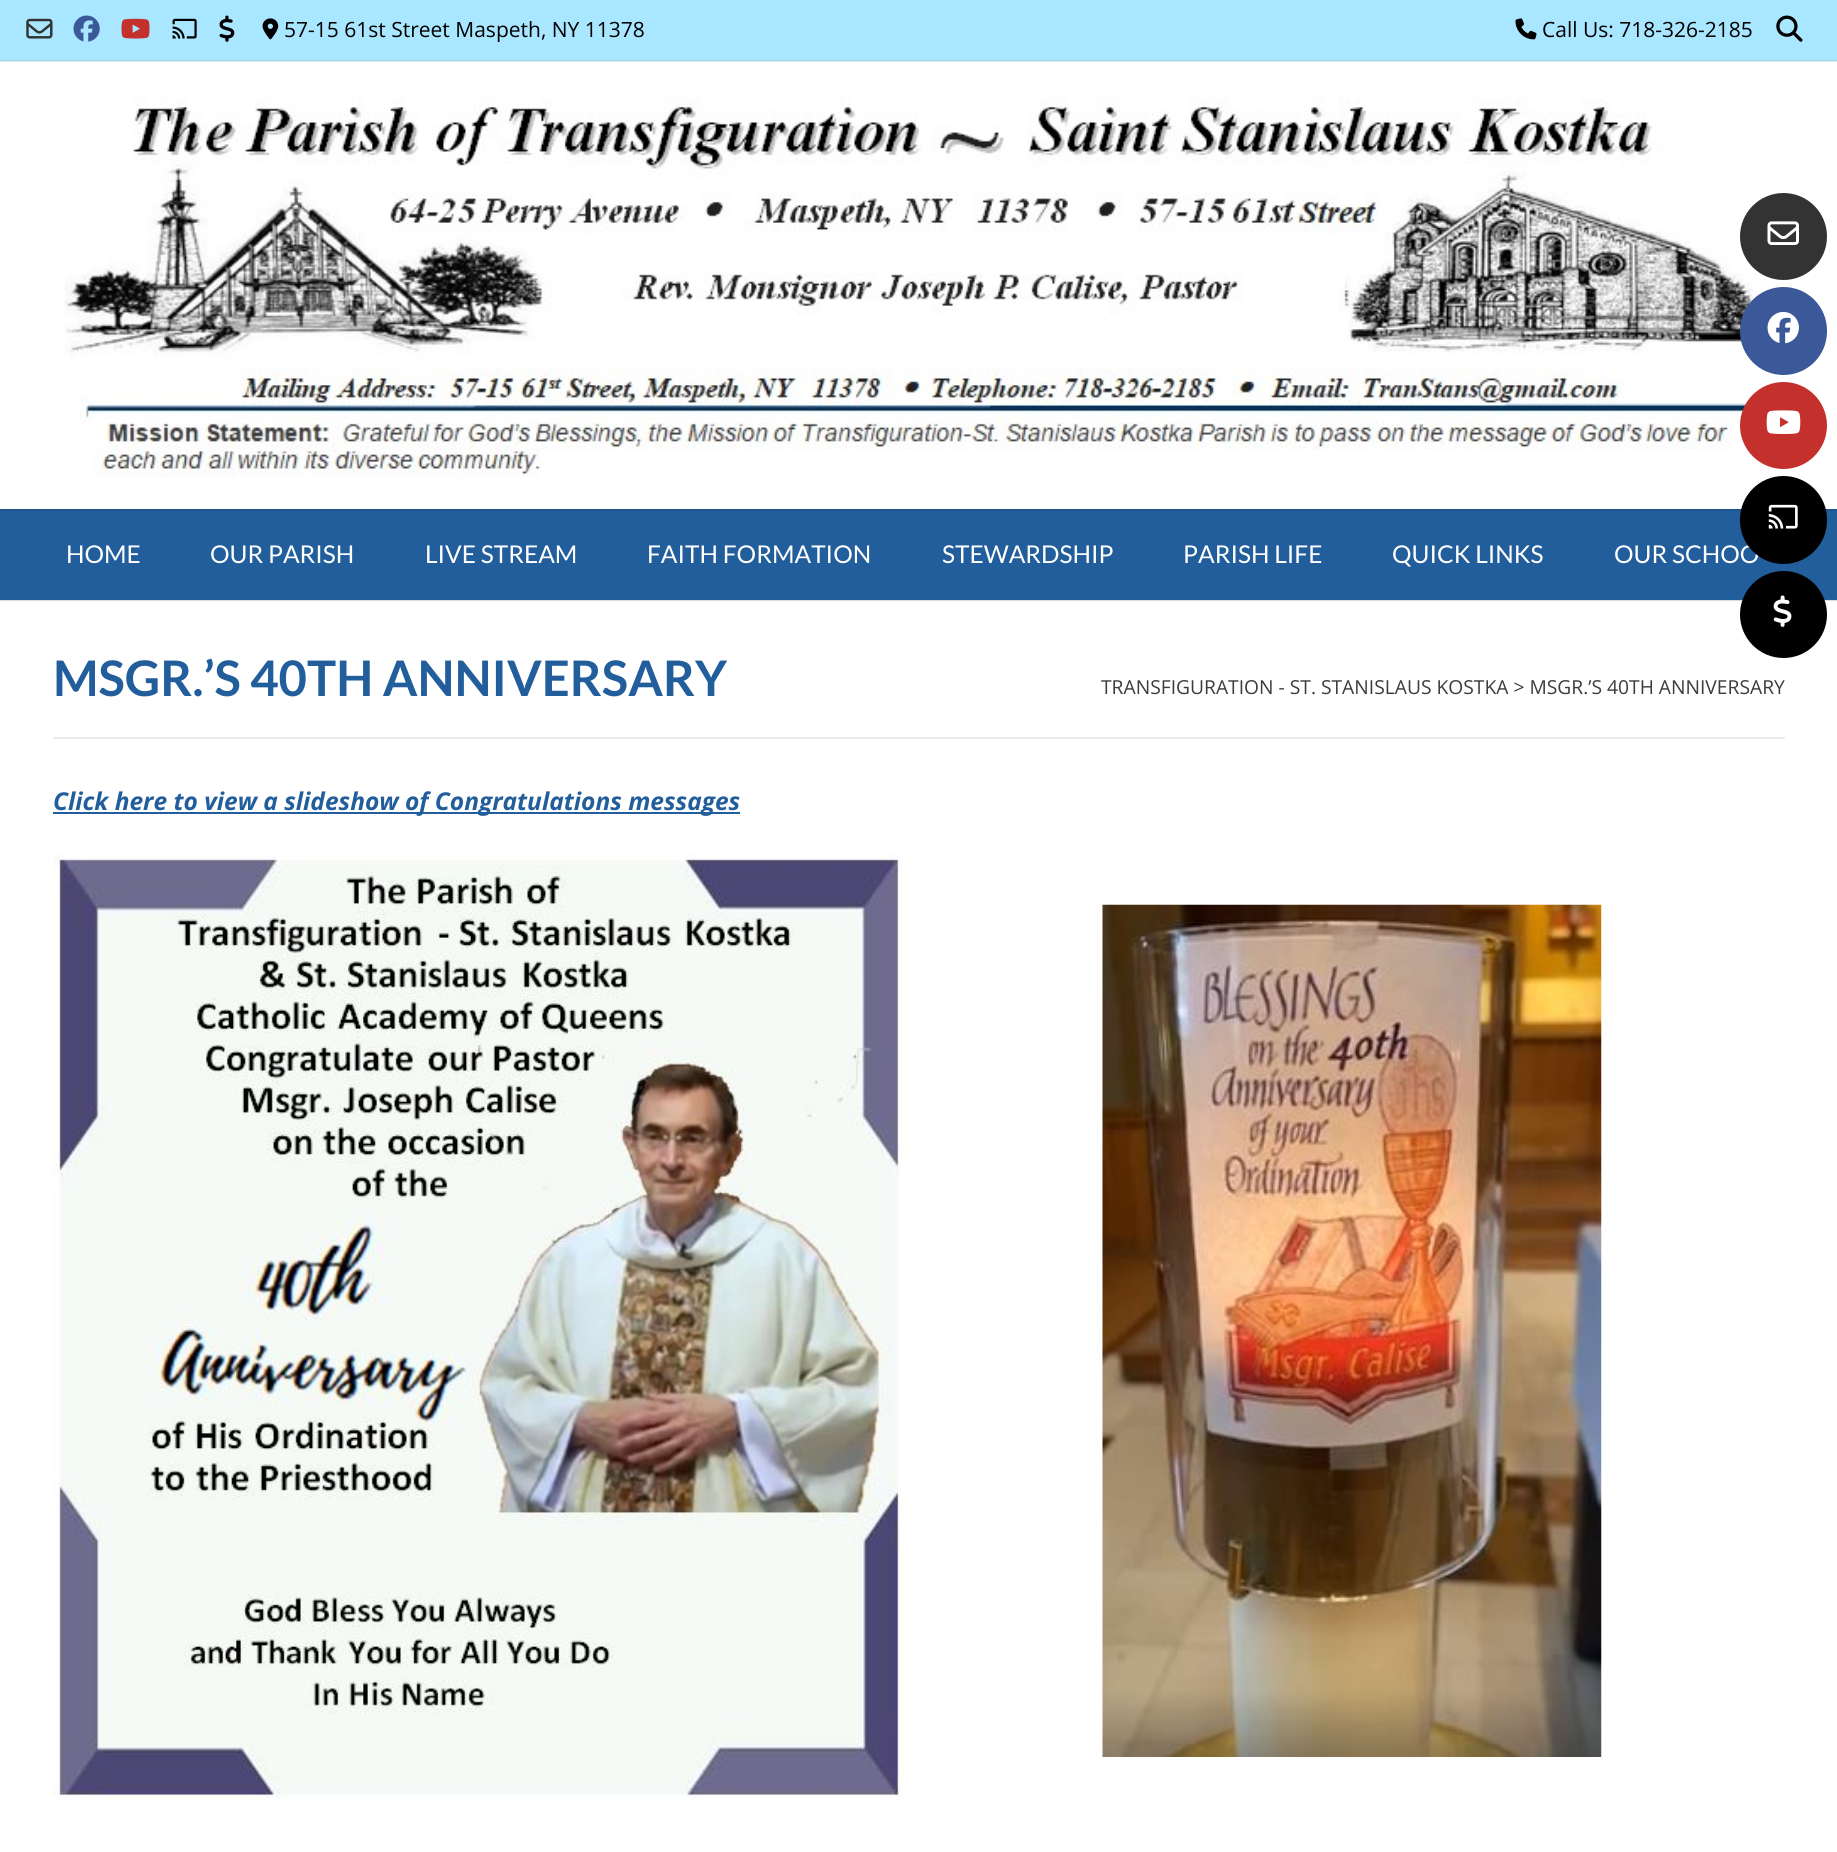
#include <cairo.h>
#include <math.h>
#include <stddef.h>


static void rgb(cairo_t *cr, int r, int g, int b)
{
	cairo_set_source_rgb(cr, r / 255.0, g / 255.0, b / 255.0);
}

static void face(cairo_t *cr, const char *family, double size, int italic, int bold)
{
	cairo_select_font_face(cr, family, italic ? CAIRO_FONT_SLANT_ITALIC : CAIRO_FONT_SLANT_NORMAL,
		bold ? CAIRO_FONT_WEIGHT_BOLD : CAIRO_FONT_WEIGHT_NORMAL);
	cairo_set_font_size(cr, size);
}

static void label(cairo_t *cr, double x, double y, const char *s)
{
	cairo_move_to(cr, x, y);
	cairo_show_text(cr, s);
}

static void rect(cairo_t *cr, double x, double y, double w, double h)
{
	cairo_rectangle(cr, x, y, w, h);
	cairo_fill(cr);
}

static void rrect(cairo_t *cr, double x, double y, double w, double h, double r)
{
	cairo_new_sub_path(cr);
	cairo_arc(cr, x + w - r, y + h - r, r, 0, M_PI / 2);
	cairo_arc(cr, x + r, y + h - r, r, M_PI / 2, M_PI);
	cairo_arc(cr, x + r, y + r, r, M_PI, 1.5 * M_PI);
	cairo_arc(cr, x + w - r, y + r, r, 1.5 * M_PI, 2 * M_PI);
	cairo_close_path(cr);
}

static void image(cairo_t *cr, const char *path, double x, double y, double w, double h)
{
	cairo_surface_t *image = cairo_image_surface_create_from_png(path);
	cairo_save(cr);
	cairo_set_source_surface(cr, image, x, y);
	cairo_rectangle(cr, x, y, w, h);
	cairo_fill(cr);
	cairo_restore(cr);
	cairo_surface_destroy(image);
}

static void draw(cairo_t *cr) {
	rgb(cr, 255, 255, 255);
	cairo_paint(cr);
	rgb(cr, 235, 235, 235);
	rect(cr, 0, 61, 1837, 1);
	rgb(cr, 219, 219, 219);
	rect(cr, 0, 600, 1837, 1);
	rgb(cr, 169, 230, 255);
	rect(cr, 0, 0, 1837, 60);
	rgb(cr, 155, 212, 235);
	rect(cr, 0, 60, 1837, 1);
	image(cr, "image0.png", 26, 18, 27, 21);
	image(cr, "image1.png", 73, 15, 27, 27);
	image(cr, "image2.png", 121, 18, 29, 21);
	image(cr, "image3.png", 172, 18, 25, 21);
	image(cr, "image4.png", 219, 15, 16, 27);
	image(cr, "image5.png", 262, 18, 17, 22);
	face(cr, "Open Sans", 21, 0, 0);
	rgb(cr, 0, 0, 0);
	label(cr, 284, 37, "57-15 61st Street Maspeth, NY 11378");
	image(cr, "image6.png", 1515, 18, 22, 22);
	label(cr, 1542, 37, "Call Us: 718-326-2185");
	image(cr, "image7.png", 1776, 15, 27, 27);
	image(cr, "image8.png", 64, 97, 1721, 381);
	rgb(cr, 34, 94, 155);
	rect(cr, 0, 511, 1837, 89);
	rgb(cr, 31, 86, 143);
	rect(cr, 0, 509, 1837, 2);
	face(cr, "Lato", 24.5, 0, 0);
	rgb(cr, 255, 255, 255);
	label(cr, 66, 563, "HOME");
	label(cr, 210, 563, "OUR PARISH");
	label(cr, 425, 563, "LIVE STREAM");
	label(cr, 647, 563, "FAITH FORMATION");
	label(cr, 942, 563, "STEWARDSHIP");
	label(cr, 1183, 563, "PARISH LIFE");
	label(cr, 1392, 563, "QUICK LINKS");
	label(cr, 1614, 563, "OUR SCHOO");
	rgb(cr, 235, 235, 235);
	rect(cr, 53, 737, 1732, 2);
	face(cr, "Lato", 49, 0, 1);
	rgb(cr, 34, 94, 155);
	label(cr, 53, 696, "MSGR.’S 40TH ANNIVERSARY");
	face(cr, "Open Sans", 19.25, 0, 0);
	rgb(cr, 60, 60, 60);
	label(cr, 1101, 694, "TRANSFIGURATION - ST. STANISLAUS KOSTKA > MSGR.’S 40TH ANNIVERSARY");
	rgb(cr, 34, 94, 155);
	rect(cr, 53, 812, 687, 2);
	face(cr, "Open Sans", 24.5, 1, 1);
	label(cr, 53, 810, "Click here to view a slideshow of Congratulations messages");
	image(cr, "image9.png", 52, 854, 861, 945);
	image(cr, "image10.png", 1102, 904, 500, 853);
	rgb(cr, 51, 51, 51);
	cairo_arc(cr, 1783.5, 236.5, 43.5, 0, 2 * M_PI);
	cairo_fill(cr);
	image(cr, "image11.png", 1767, 221, 32, 24);
	rgb(cr, 59, 89, 152);
	rrect(cr, 1740, 287, 87, 88, 43.5);
	cairo_fill(cr);
	image(cr, "image12.png", 1767, 311, 32, 33);
	rgb(cr, 196, 48, 43);
	cairo_arc(cr, 1783.5, 425.5, 43.5, 0, 2 * M_PI);
	cairo_fill(cr);
	image(cr, "image13.png", 1766, 410, 35, 24);
	rgb(cr, 0, 0, 0);
	rrect(cr, 1740, 476, 87, 88, 43.5);
	cairo_fill(cr);
	image(cr, "image14.png", 1768, 504, 30, 25);
	cairo_arc(cr, 1783.5, 614.5, 43.5, 0, 2 * M_PI);
	cairo_fill(cr);
	image(cr, "image15.png", 1773, 595, 19, 32);
}

int main(void) {
	cairo_surface_t *surface = cairo_image_surface_create(CAIRO_FORMAT_RGB24, 1837, 1852);
	cairo_t *cr = cairo_create(surface);
	cairo_font_options_t *options = cairo_font_options_create();
	cairo_font_options_set_hint_metrics(options, CAIRO_HINT_METRICS_OFF);
	cairo_font_options_set_hint_style(options, CAIRO_HINT_STYLE_NONE);
	cairo_set_font_options(cr, options);
	cairo_set_miter_limit(cr, 4);
	draw(cr);
	cairo_surface_write_to_png(surface, "render.png");
	cairo_font_options_destroy(options);
	cairo_destroy(cr);
	cairo_surface_destroy(surface);
	return 0;
}
